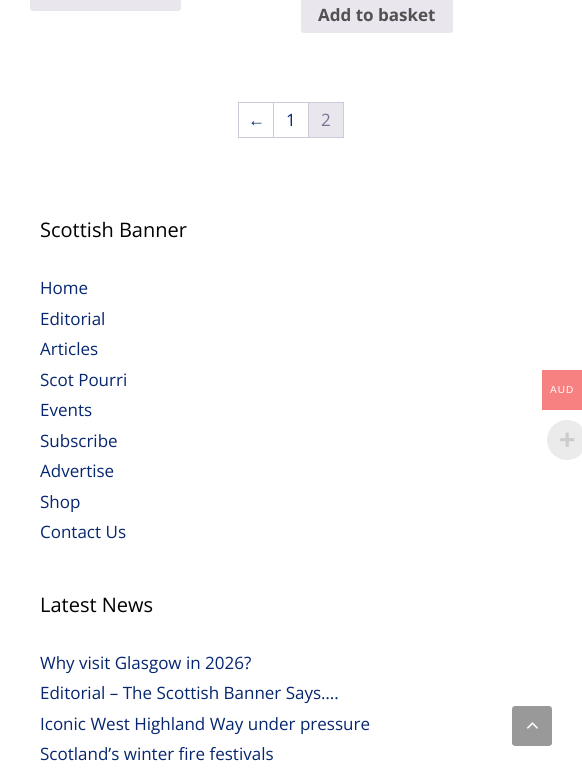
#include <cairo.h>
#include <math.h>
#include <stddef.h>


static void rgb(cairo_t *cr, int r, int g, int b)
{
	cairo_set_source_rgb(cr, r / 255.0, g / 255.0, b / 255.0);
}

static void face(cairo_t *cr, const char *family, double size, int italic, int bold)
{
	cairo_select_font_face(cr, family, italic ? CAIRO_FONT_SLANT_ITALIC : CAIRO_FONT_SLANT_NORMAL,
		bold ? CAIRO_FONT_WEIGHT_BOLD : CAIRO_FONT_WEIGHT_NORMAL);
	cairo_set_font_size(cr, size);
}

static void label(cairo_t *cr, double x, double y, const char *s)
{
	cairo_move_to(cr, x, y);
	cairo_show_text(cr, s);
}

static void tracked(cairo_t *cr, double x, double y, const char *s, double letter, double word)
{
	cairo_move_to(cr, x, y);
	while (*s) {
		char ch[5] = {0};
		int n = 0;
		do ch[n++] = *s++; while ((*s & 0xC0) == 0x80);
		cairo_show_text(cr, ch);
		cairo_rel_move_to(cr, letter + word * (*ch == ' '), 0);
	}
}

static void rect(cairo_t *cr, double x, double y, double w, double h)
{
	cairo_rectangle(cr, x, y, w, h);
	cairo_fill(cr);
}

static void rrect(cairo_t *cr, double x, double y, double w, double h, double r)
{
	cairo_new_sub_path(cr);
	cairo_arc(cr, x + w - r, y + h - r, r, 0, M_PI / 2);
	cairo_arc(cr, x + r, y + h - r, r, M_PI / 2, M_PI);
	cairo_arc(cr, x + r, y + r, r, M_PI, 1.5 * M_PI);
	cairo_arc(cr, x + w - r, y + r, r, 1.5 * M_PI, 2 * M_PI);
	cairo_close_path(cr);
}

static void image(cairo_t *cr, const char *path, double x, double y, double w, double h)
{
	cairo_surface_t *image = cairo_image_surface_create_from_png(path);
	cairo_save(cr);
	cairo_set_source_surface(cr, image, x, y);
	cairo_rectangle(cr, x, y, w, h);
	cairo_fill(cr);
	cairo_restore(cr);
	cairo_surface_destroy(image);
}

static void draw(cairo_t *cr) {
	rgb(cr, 255, 255, 255);
	cairo_paint(cr);
	rgb(cr, 233, 230, 237);
	rrect(cr, 30, -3, 151, 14, 3);
	cairo_fill(cr);
	rrect(cr, 301, -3, 152, 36, 3);
	cairo_fill(cr);
	face(cr, "Open Sans", 17, 0, 1);
	rgb(cr, 81, 81, 81);
	label(cr, 318, 21, "Add to basket");
	rgb(cr, 207, 200, 216);
	rect(cr, 238, 102, 106, 1);
	rect(cr, 238, 137, 106, 1);
	rect(cr, 238, 102, 1, 36);
	rect(cr, 273, 103, 1, 34);
	face(cr, "Liberation Sans", 17, 0, 0);
	rgb(cr, 6, 38, 111);
	label(cr, 248, 126, "←");
	rgb(cr, 207, 200, 216);
	rect(cr, 308, 103, 1, 34);
	face(cr, "Open Sans", 17, 0, 0);
	rgb(cr, 6, 38, 111);
	label(cr, 286, 126, "1");
	rgb(cr, 207, 200, 216);
	rect(cr, 343, 103, 1, 34);
	rgb(cr, 233, 230, 237);
	rect(cr, 309, 103, 34, 34);
	rgb(cr, 129, 111, 152);
	label(cr, 321, 126, "2");
	face(cr, "Open Sans", 20, 0, 0);
	rgb(cr, 0, 0, 0);
	label(cr, 40, 237, "Scottish Banner");
	face(cr, "Open Sans", 17, 0, 0);
	rgb(cr, 6, 38, 111);
	label(cr, 40, 294, "Home");
	label(cr, 40, 325, "Editorial");
	label(cr, 40, 355, "Articles");
	label(cr, 40, 386, "Scot Pourri");
	label(cr, 40, 416, "Events");
	label(cr, 40, 447, "Subscribe");
	label(cr, 40, 477, "Advertise");
	label(cr, 40, 508, "Shop");
	label(cr, 40, 538, "Contact Us");
	face(cr, "Open Sans", 20, 0, 0);
	rgb(cr, 0, 0, 0);
	label(cr, 40, 612, "Latest News");
	face(cr, "Open Sans", 17, 0, 0);
	rgb(cr, 6, 38, 111);
	label(cr, 40, 669, "Why visit Glasgow in 2026?");
	label(cr, 40, 699, "Editorial – The Scottish Banner Says….");
	label(cr, 40, 730, "Iconic West Highland Way under pressure");
	label(cr, 40, 760, "Scotland’s winter fire festivals");
	rgb(cr, 247, 128, 128);
	rect(cr, 542, 370, 40, 40);
	face(cr, "Liberation Sans", 10, 0, 0);
	rgb(cr, 255, 255, 255);
	tracked(cr, 550, 393, "AUD", 1, 0);
	rgb(cr, 235, 235, 235);
	cairo_new_path(cr);
	cairo_arc(cr, 567, 440, 20, 0, 2 * M_PI);
	cairo_fill(cr);
	face(cr, "Liberation Sans", 28, 0, 1);
	rgb(cr, 204, 204, 204);
	label(cr, 559, 449, "+");
	rgb(cr, 153, 153, 153);
	rrect(cr, 512, 706, 40, 40, 3);
	cairo_fill(cr);
	image(cr, "image0.png", 527, 722, 11, 7);
}

int main(void) {
	cairo_surface_t *surface = cairo_image_surface_create(CAIRO_FORMAT_RGB24, 582, 776);
	cairo_t *cr = cairo_create(surface);
	cairo_font_options_t *options = cairo_font_options_create();
	cairo_font_options_set_hint_metrics(options, CAIRO_HINT_METRICS_OFF);
	cairo_font_options_set_hint_style(options, CAIRO_HINT_STYLE_NONE);
	cairo_set_font_options(cr, options);
	cairo_set_miter_limit(cr, 4);
	draw(cr);
	cairo_surface_write_to_png(surface, "render.png");
	cairo_font_options_destroy(options);
	cairo_destroy(cr);
	cairo_surface_destroy(surface);
	return 0;
}
